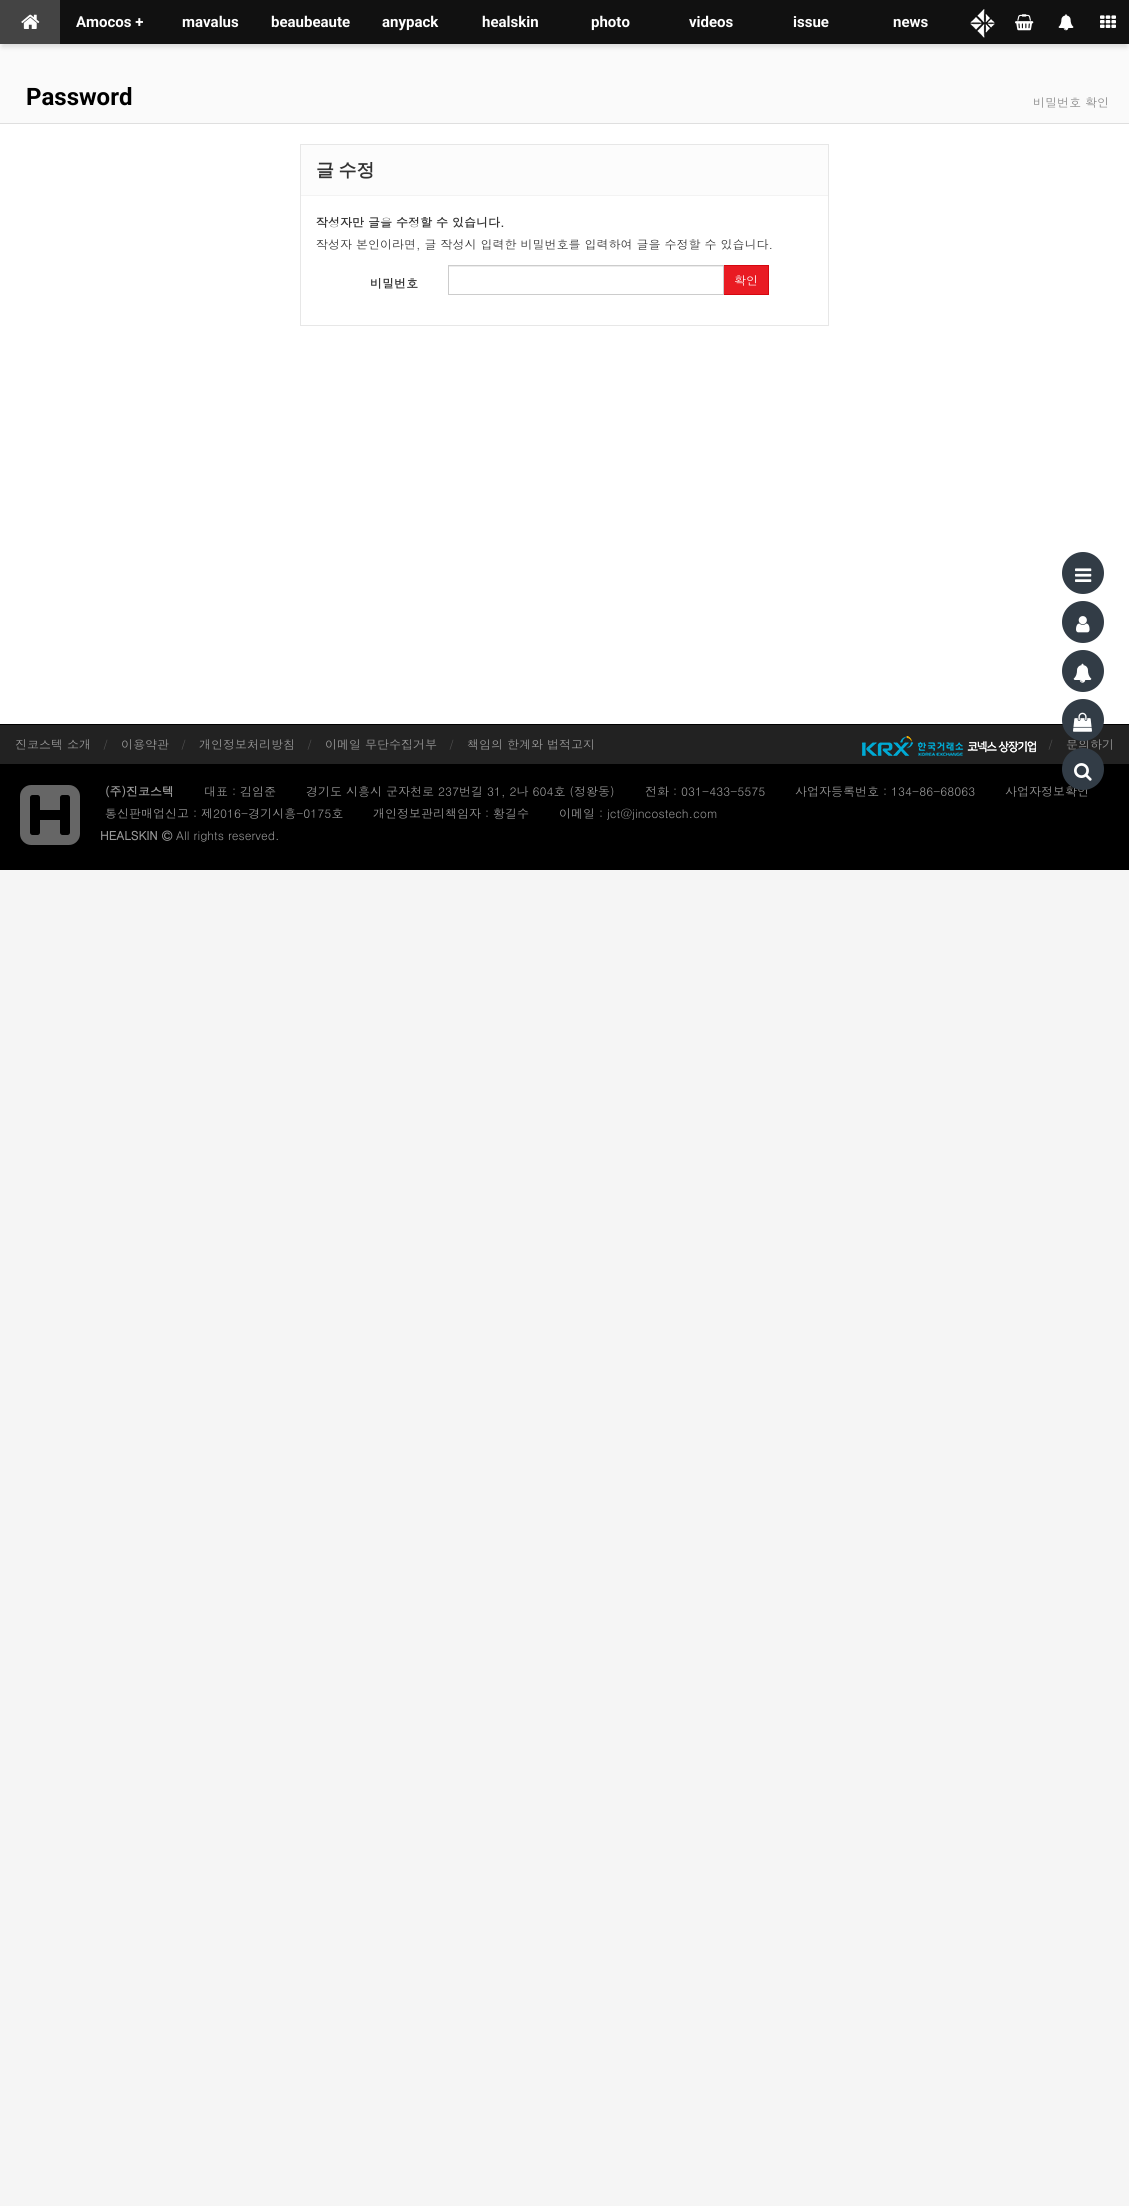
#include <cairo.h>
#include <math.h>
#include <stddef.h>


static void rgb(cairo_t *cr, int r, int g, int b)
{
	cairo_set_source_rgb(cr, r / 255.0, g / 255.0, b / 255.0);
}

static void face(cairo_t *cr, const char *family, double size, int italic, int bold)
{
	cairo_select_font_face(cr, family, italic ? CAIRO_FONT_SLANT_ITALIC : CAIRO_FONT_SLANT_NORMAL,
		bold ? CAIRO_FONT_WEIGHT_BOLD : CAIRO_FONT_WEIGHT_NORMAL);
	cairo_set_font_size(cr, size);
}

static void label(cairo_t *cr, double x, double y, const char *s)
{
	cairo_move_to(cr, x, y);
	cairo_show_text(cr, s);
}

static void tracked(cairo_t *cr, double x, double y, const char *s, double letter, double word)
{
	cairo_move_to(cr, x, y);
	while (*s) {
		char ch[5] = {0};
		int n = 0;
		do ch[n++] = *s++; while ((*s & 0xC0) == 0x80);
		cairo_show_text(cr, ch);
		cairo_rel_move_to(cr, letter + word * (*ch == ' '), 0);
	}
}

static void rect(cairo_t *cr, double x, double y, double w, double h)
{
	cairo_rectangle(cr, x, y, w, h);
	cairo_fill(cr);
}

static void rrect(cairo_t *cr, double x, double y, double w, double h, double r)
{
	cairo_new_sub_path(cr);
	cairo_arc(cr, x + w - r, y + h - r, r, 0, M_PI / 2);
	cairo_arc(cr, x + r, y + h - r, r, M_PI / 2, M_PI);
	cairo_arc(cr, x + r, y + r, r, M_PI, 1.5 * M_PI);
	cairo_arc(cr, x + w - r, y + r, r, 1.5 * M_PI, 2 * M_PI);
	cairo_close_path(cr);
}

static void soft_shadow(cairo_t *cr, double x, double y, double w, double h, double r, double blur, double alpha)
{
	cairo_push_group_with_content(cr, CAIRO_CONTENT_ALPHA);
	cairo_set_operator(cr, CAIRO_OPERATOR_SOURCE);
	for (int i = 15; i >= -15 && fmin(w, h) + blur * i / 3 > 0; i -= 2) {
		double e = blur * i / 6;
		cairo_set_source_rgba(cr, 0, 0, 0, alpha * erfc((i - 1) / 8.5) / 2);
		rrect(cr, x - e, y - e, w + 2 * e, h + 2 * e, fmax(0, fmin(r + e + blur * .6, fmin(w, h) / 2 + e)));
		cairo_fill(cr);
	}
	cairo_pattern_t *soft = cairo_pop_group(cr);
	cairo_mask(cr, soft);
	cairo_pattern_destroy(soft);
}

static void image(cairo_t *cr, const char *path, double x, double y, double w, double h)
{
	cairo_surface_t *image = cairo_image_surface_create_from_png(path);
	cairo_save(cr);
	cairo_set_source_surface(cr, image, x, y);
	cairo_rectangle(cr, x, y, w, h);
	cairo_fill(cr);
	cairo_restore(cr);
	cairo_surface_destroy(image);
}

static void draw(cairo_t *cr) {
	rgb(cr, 245, 245, 245);
	cairo_paint(cr);
	rgb(cr, 255, 255, 255);
	rect(cr, 0, 124, 1129, 600);
	rgb(cr, 250, 250, 250);
	rect(cr, 0, 44, 1129, 79);
	rgb(cr, 25, 25, 25);
	soft_shadow(cr, 2, 7, 1125, 40, 0, 2.5, 0.15);
	rgb(cr, 68, 68, 68);
	rect(cr, 0, 0, 60, 44);
	image(cr, "image0.png", 21, 14, 19, 15);
	rgb(cr, 17, 17, 17);
	rect(cr, 60, 0, 1069, 44);
	face(cr, "Roboto", 15, 0, 1);
	rgb(cr, 255, 255, 255);
	label(cr, 76, 27, "Amocos +");
	label(cr, 182, 27, "mavalus");
	label(cr, 271, 27, "beaubeaute");
	label(cr, 382, 27, "anypack");
	label(cr, 482, 27, "healskin");
	label(cr, 591, 27, "photo");
	label(cr, 689, 27, "videos");
	label(cr, 793, 27, "issue");
	label(cr, 893, 27, "news");
	image(cr, "image1.png", 970, 9, 25, 29);
	image(cr, "image2.png", 1015, 14, 19, 17);
	image(cr, "image3.png", 1058, 14, 16, 17);
	image(cr, "image4.png", 1100, 15, 16, 13);
	rgb(cr, 223, 223, 223);
	rect(cr, 0, 123, 1129, 1);
	face(cr, "Roboto", 24, 0, 1);
	rgb(cr, 0, 0, 0);
	label(cr, 26, 105, "Password");
	face(cr, "Dotum", 12, 0, 0);
	rgb(cr, 136, 136, 136);
	label(cr, 1033, 107, "비밀번호 확인");
	rgb(cr, 252, 252, 252);
	rect(cr, 301, 145, 527, 50);
	cairo_rectangle(cr, 300.5, 144.5, 528, 181);
	rgb(cr, 231, 231, 231);
	cairo_set_line_width(cr, 1);
	cairo_stroke(cr);
	rgb(cr, 243, 243, 243);
	rect(cr, 301, 195, 527, 1);
	face(cr, "WenQuanYi Zen Hei", 18, 0, 1);
	rgb(cr, 51, 51, 51);
	tracked(cr, 316, 176, "글 수정", 0, -1);
	face(cr, "Dotum", 12, 0, 1);
	label(cr, 316, 227, "작성자만 글을 수정할 수 있습니다.");
	face(cr, "Dotum", 12, 0, 0);
	label(cr, 316, 249, "작성자 본인이라면, 글 작성시 입력한 비밀번호를 입력하여 글을 수정할 수 있습니다.");
	face(cr, "Dotum", 12, 0, 1);
	label(cr, 370, 288, "비밀번호");
	rgb(cr, 236, 236, 236);
	rect(cr, 449, 266, 274, 1);
	rgb(cr, 233, 27, 35);
	cairo_rectangle(cr, 723.5, 265.5, 45, 29);
	cairo_fill_preserve(cr);
	rgb(cr, 213, 7, 15);
	cairo_stroke(cr);
	cairo_rectangle(cr, 448.5, 265.5, 275, 29);
	rgb(cr, 204, 204, 204);
	cairo_stroke(cr);
	face(cr, "Dotum", 12, 0, 0);
	rgb(cr, 255, 255, 255);
	label(cr, 734, 285, "확인");
	rgb(cr, 0, 0, 0);
	rect(cr, 0, 764, 1129, 106);
	rgb(cr, 34, 34, 34);
	rect(cr, 0, 725, 1129, 39);
	rgb(cr, 0, 0, 0);
	rect(cr, 0, 724, 1129, 1);
	rgb(cr, 153, 153, 153);
	label(cr, 15, 749, "진코스텍 소개");
	rgb(cr, 85, 85, 85);
	label(cr, 103, 749, "/");
	rgb(cr, 153, 153, 153);
	label(cr, 121, 749, "이용약관");
	rgb(cr, 85, 85, 85);
	label(cr, 181, 749, "/");
	rgb(cr, 153, 153, 153);
	label(cr, 199, 749, "개인정보처리방침");
	rgb(cr, 85, 85, 85);
	label(cr, 307, 749, "/");
	rgb(cr, 153, 153, 153);
	label(cr, 325, 749, "이메일 무단수집거부");
	rgb(cr, 85, 85, 85);
	label(cr, 449, 749, "/");
	rgb(cr, 153, 153, 153);
	label(cr, 467, 749, "책임의 한계와 법적고지");
	image(cr, "image5.png", 862, 736, 174, 20);
	rgb(cr, 85, 85, 85);
	label(cr, 1048, 749, "/");
	rgb(cr, 153, 153, 153);
	label(cr, 1066, 749, "문의하기");
	image(cr, "image6.png", 20, 785, 60, 60);
	face(cr, "Dotum", 12, 0, 1);
	label(cr, 105, 796, "(주)진코스텍");
	face(cr, "Dotum", 12, 0, 0);
	label(cr, 204, 796, "대표 : 김임준");
	label(cr, 306, 796, "경기도 시흥시 군자천로 237번길 31, 2나 604호 (정왕동)");
	label(cr, 645, 796, "전화 : 031-433-5575");
	label(cr, 795, 796, "사업자등록번호 : 134-86-68063");
	label(cr, 1005, 796, "사업자정보확인");
	label(cr, 105, 818, "통신판매업신고 : 제2016-경기시흥-0175호");
	label(cr, 373, 818, "개인정보관리책임자 : 황길수");
	label(cr, 559, 818, "이메일 : jct@jincostech.com");
	face(cr, "Dotum", 12, 0, 1);
	label(cr, 100, 840, "HEALSKIN");
	image(cr, "image7.png", 162, 830, 11, 11);
	face(cr, "Dotum", 12, 0, 0);
	label(cr, 176, 840, "All rights reserved.");
	rgb(cr, 50, 60, 70);
	cairo_new_path(cr);
	cairo_arc(cr, 1083, 573, 21, 0, 2 * M_PI);
	cairo_fill(cr);
	image(cr, "image8.png", 1075, 568, 17, 14);
	cairo_arc(cr, 1083, 622, 21, 0, 2 * M_PI);
	cairo_fill(cr);
	image(cr, "image9.png", 1076, 616, 14, 17);
	cairo_arc(cr, 1083, 671, 21, 0, 2 * M_PI);
	cairo_fill(cr);
	image(cr, "image10.png", 1073, 663, 19, 20);
	cairo_arc(cr, 1083, 720, 21, 0, 2 * M_PI);
	cairo_fill(cr);
	image(cr, "image11.png", 1073, 712, 19, 20);
	cairo_arc(cr, 1083, 769, 21, 0, 2 * M_PI);
	cairo_fill(cr);
	image(cr, "image12.png", 1074, 763, 18, 18);
}

int main(void) {
	cairo_surface_t *surface = cairo_image_surface_create(CAIRO_FORMAT_RGB24, 1129, 2206);
	cairo_t *cr = cairo_create(surface);
	cairo_font_options_t *options = cairo_font_options_create();
	cairo_font_options_set_hint_metrics(options, CAIRO_HINT_METRICS_OFF);
	cairo_font_options_set_hint_style(options, CAIRO_HINT_STYLE_NONE);
	cairo_set_font_options(cr, options);
	cairo_set_miter_limit(cr, 4);
	draw(cr);
	cairo_surface_write_to_png(surface, "render.png");
	cairo_font_options_destroy(options);
	cairo_destroy(cr);
	cairo_surface_destroy(surface);
	return 0;
}
